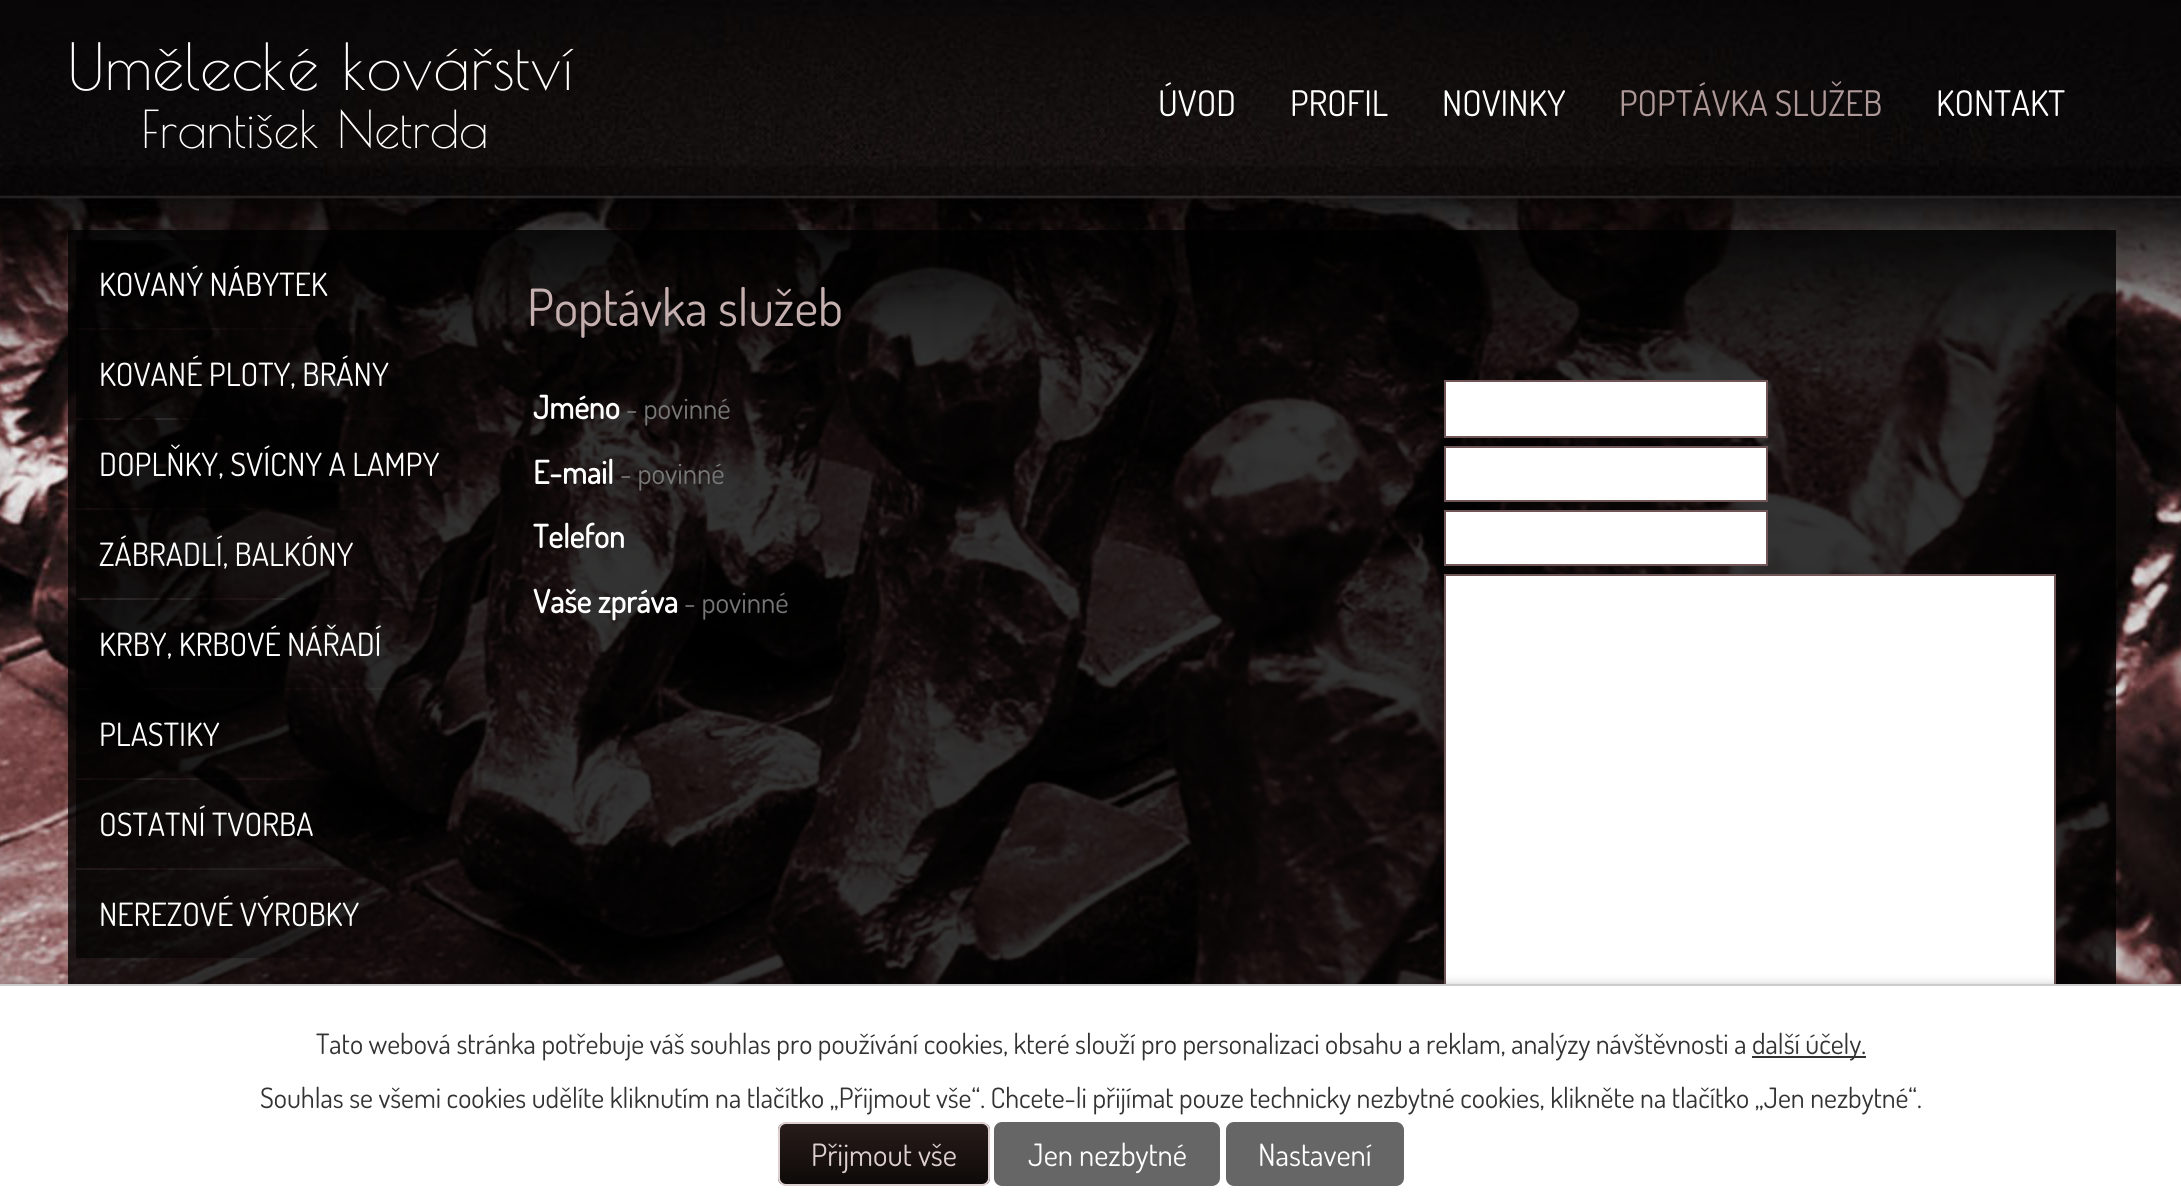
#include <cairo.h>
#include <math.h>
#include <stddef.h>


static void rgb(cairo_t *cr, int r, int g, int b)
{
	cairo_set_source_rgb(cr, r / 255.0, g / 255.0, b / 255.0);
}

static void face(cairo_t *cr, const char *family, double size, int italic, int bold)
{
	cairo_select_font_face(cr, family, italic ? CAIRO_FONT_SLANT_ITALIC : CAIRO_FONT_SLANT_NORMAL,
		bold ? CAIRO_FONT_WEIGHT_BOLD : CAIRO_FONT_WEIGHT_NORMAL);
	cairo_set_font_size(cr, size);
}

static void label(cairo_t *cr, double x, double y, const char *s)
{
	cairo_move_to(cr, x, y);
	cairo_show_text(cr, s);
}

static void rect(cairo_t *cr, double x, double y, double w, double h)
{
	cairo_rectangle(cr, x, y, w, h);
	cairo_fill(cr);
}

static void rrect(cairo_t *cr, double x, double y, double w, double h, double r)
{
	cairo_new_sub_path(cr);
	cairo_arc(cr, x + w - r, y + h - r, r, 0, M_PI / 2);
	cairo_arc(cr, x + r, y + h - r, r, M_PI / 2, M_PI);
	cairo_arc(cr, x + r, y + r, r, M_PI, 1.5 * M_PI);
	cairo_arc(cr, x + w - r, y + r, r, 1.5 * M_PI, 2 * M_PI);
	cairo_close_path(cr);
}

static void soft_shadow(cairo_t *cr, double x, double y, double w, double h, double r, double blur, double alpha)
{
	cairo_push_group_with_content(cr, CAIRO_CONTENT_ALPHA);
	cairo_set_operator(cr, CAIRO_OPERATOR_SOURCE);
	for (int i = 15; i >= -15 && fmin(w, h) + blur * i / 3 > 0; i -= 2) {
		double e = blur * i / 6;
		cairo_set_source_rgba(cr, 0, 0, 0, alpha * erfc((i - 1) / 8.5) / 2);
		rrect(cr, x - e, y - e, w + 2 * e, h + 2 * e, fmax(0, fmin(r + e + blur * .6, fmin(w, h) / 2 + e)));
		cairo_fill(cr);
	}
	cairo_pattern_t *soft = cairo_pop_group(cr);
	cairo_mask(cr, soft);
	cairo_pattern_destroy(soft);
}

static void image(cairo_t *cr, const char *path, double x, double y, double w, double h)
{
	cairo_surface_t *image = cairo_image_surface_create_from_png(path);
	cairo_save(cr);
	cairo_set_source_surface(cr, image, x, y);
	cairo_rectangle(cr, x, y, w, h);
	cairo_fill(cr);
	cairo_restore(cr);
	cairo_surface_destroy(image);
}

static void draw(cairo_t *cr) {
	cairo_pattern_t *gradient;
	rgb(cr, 255, 255, 255);
	cairo_paint(cr);
	image(cr, "image0.png", 0, 0, 2181, 984);
	face(cr, "Poiret One", 63.75, 0, 0);
	rgb(cr, 255, 255, 255);
	label(cr, 67, 90, "Umělecké kovářství");
	face(cr, "Poiret One", 51.25, 0, 0);
	label(cr, 141, 148, "František Netrda");
	face(cr, "Dosis", 35.25, 0, 0);
	label(cr, 1158, 116, "ÚVOD");
	label(cr, 1290, 116, "PROFIL");
	label(cr, 1442, 116, "NOVINKY");
	rgb(cr, 174, 151, 151);
	label(cr, 1619, 116, "POPTÁVKA SLUŽEB");
	rgb(cr, 255, 255, 255);
	label(cr, 1936, 116, "KONTAKT");
	cairo_set_source_rgba(cr, 0, 0, 0, 0.8);
	rect(cr, 68, 230, 2048, 754);
	gradient = cairo_pattern_create_linear(76, 284, 476, 284);
	cairo_pattern_add_color_stop_rgba(gradient, 0, 0, 0, 0, 0.65);
	cairo_pattern_add_color_stop_rgba(gradient, 1, 0, 0, 0, 0);
	cairo_set_source(cr, gradient);
	cairo_pattern_destroy(gradient);
	rect(cr, 76, 240, 357, 88);
	face(cr, "Dosis", 32, 0, 0);
	rgb(cr, 255, 255, 255);
	label(cr, 99, 296, "KOVANÝ NÁBYTEK");
	gradient = cairo_pattern_create_linear(76, 374, 476, 374);
	cairo_pattern_add_color_stop_rgba(gradient, 0, 0, 0, 0, 0.65);
	cairo_pattern_add_color_stop_rgba(gradient, 1, 0, 0, 0, 0);
	cairo_set_source(cr, gradient);
	cairo_pattern_destroy(gradient);
	rect(cr, 76, 330, 325, 88);
	rgb(cr, 255, 255, 255);
	label(cr, 99, 386, "KOVANÉ PLOTY, BRÁNY");
	gradient = cairo_pattern_create_linear(76, 464, 476, 464);
	cairo_pattern_add_color_stop_rgba(gradient, 0, 0, 0, 0, 0.65);
	cairo_pattern_add_color_stop_rgba(gradient, 1, 0, 0, 0, 0);
	cairo_set_source(cr, gradient);
	cairo_pattern_destroy(gradient);
	rect(cr, 76, 420, 351, 88);
	rgb(cr, 255, 255, 255);
	label(cr, 99, 476, "DOPLŇKY, SVÍCNY A LAMPY");
	gradient = cairo_pattern_create_linear(76, 554, 476, 554);
	cairo_pattern_add_color_stop_rgba(gradient, 0, 0, 0, 0, 0.65);
	cairo_pattern_add_color_stop_rgba(gradient, 1, 0, 0, 0, 0);
	cairo_set_source(cr, gradient);
	cairo_pattern_destroy(gradient);
	rect(cr, 76, 510, 367, 88);
	rgb(cr, 255, 255, 255);
	label(cr, 99, 566, "ZÁBRADLÍ, BALKÓNY");
	gradient = cairo_pattern_create_linear(76, 644, 476, 644);
	cairo_pattern_add_color_stop_rgba(gradient, 0, 0, 0, 0, 0.65);
	cairo_pattern_add_color_stop_rgba(gradient, 1, 0, 0, 0, 0);
	cairo_set_source(cr, gradient);
	cairo_pattern_destroy(gradient);
	rect(cr, 76, 600, 355, 88);
	rgb(cr, 255, 255, 255);
	label(cr, 99, 656, "KRBY, KRBOVÉ NÁŘADÍ");
	gradient = cairo_pattern_create_linear(76, 734, 476, 734);
	cairo_pattern_add_color_stop_rgba(gradient, 0, 0, 0, 0, 0.65);
	cairo_pattern_add_color_stop_rgba(gradient, 1, 0, 0, 0, 0);
	cairo_set_source(cr, gradient);
	cairo_pattern_destroy(gradient);
	rect(cr, 76, 690, 364, 88);
	rgb(cr, 255, 255, 255);
	label(cr, 99, 746, "PLASTIKY");
	gradient = cairo_pattern_create_linear(76, 824, 476, 824);
	cairo_pattern_add_color_stop_rgba(gradient, 0, 0, 0, 0, 0.65);
	cairo_pattern_add_color_stop_rgba(gradient, 1, 0, 0, 0, 0);
	cairo_set_source(cr, gradient);
	cairo_pattern_destroy(gradient);
	rect(cr, 76, 780, 363, 88);
	rgb(cr, 255, 255, 255);
	label(cr, 99, 836, "OSTATNÍ TVORBA");
	gradient = cairo_pattern_create_linear(76, 914, 476, 914);
	cairo_pattern_add_color_stop_rgba(gradient, 0, 0, 0, 0, 0.65);
	cairo_pattern_add_color_stop_rgba(gradient, 1, 0, 0, 0, 0);
	cairo_set_source(cr, gradient);
	cairo_pattern_destroy(gradient);
	rect(cr, 76, 870, 363, 88);
	rgb(cr, 255, 255, 255);
	label(cr, 99, 926, "NEREZOVÉ VÝROBKY");
	face(cr, "Dosis", 51.25, 0, 0);
	rgb(cr, 197, 175, 175);
	label(cr, 527, 326, "Poptávka služeb");
	face(cr, "Dosis", 32, 0, 1);
	rgb(cr, 255, 255, 255);
	label(cr, 533, 419, "Jméno");
	face(cr, "Dosis", 29, 0, 0);
	rgb(cr, 119, 119, 119);
	label(cr, 626, 419, "- povinné");
	rgb(cr, 255, 255, 255);
	cairo_rectangle(cr, 1445, 381, 322, 56);
	cairo_fill_preserve(cr);
	rgb(cr, 111, 85, 86);
	cairo_stroke(cr);
	face(cr, "Dosis", 32, 0, 1);
	rgb(cr, 255, 255, 255);
	label(cr, 533, 484, "E-mail");
	face(cr, "Dosis", 29, 0, 0);
	rgb(cr, 119, 119, 119);
	label(cr, 620, 484, "- povinné");
	rgb(cr, 255, 255, 255);
	cairo_rectangle(cr, 1445, 447, 322, 54);
	cairo_fill_preserve(cr);
	rgb(cr, 111, 85, 86);
	cairo_stroke(cr);
	face(cr, "Dosis", 32, 0, 1);
	rgb(cr, 255, 255, 255);
	label(cr, 533, 548, "Telefon");
	cairo_rectangle(cr, 1445, 511, 322, 54);
	cairo_fill_preserve(cr);
	rgb(cr, 111, 85, 86);
	cairo_stroke(cr);
	rgb(cr, 255, 255, 255);
	label(cr, 533, 613, "Vaše zpráva");
	face(cr, "Dosis", 29, 0, 0);
	rgb(cr, 119, 119, 119);
	label(cr, 684, 613, "- povinné");
	rgb(cr, 255, 255, 255);
	rect(cr, 1446, 576, 608, 408);
	cairo_rectangle(cr, 1445, 575, 610, 416);
	rgb(cr, 111, 85, 86);
	cairo_stroke(cr);
	rgb(cr, 0, 0, 0);
	soft_shadow(cr, 0, 984, 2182, 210, 0, 5, 0.2);
	rgb(cr, 255, 255, 255);
	rect(cr, 0, 986, 2181, 207);
	rgb(cr, 204, 204, 204);
	rect(cr, 0, 984, 2181, 2);
	face(cr, "Dosis", 28, 0, 0);
	rgb(cr, 51, 51, 51);
	label(cr, 316, 1054, "Tato webová stránka potřebuje váš souhlas pro používání cookies, které slouží pro personalizaci obsahu a reklam, analýzy návštěvnosti a");
	rect(cr, 1752, 1056, 114, 2);
	label(cr, 1752, 1054, "další účely.");
	label(cr, 260, 1108, "Souhlas se všemi cookies udělíte kliknutím na tlačítko „Přijmout vše“. Chcete-li přijímat pouze technicky nezbytné cookies, klikněte na tlačítko „Jen nezbytné“.");
	cairo_save(cr);
	rrect(cr, 778, 1122, 212, 64, 8);
	cairo_clip(cr);
	gradient = cairo_pattern_create_linear(780, 1124, 780, 1184);
	cairo_pattern_add_color_stop_rgba(gradient, 0, 0.153, 0.11, 0.098, 1);
	cairo_pattern_add_color_stop_rgba(gradient, 1, 0.055, 0.039, 0.035, 1);
	cairo_set_source(cr, gradient);
	cairo_pattern_destroy(gradient);
	rect(cr, 778, 1124, 212, 60);
	cairo_restore(cr);
	rrect(cr, 779, 1123, 210, 62, 7);
	rgb(cr, 221, 207, 207);
	cairo_stroke(cr);
	face(cr, "Dosis", 30.75, 0, 0);
	label(cr, 811, 1166, "Přijmout vše");
	rgb(cr, 102, 102, 102);
	rrect(cr, 995, 1123, 224, 62, 7);
	cairo_fill_preserve(cr);
	cairo_stroke(cr);
	rgb(cr, 255, 255, 255);
	label(cr, 1028, 1166, "Jen nezbytné");
	rgb(cr, 102, 102, 102);
	rrect(cr, 1227, 1123, 176, 62, 7);
	cairo_fill_preserve(cr);
	cairo_stroke(cr);
	rgb(cr, 255, 255, 255);
	label(cr, 1258, 1166, "Nastavení");
}

int main(void) {
	cairo_surface_t *surface = cairo_image_surface_create(CAIRO_FORMAT_RGB24, 2181, 1193);
	cairo_t *cr = cairo_create(surface);
	cairo_font_options_t *options = cairo_font_options_create();
	cairo_font_options_set_hint_metrics(options, CAIRO_HINT_METRICS_OFF);
	cairo_font_options_set_hint_style(options, CAIRO_HINT_STYLE_NONE);
	cairo_set_font_options(cr, options);
	cairo_set_miter_limit(cr, 4);
	draw(cr);
	cairo_surface_write_to_png(surface, "render.png");
	cairo_font_options_destroy(options);
	cairo_destroy(cr);
	cairo_surface_destroy(surface);
	return 0;
}
